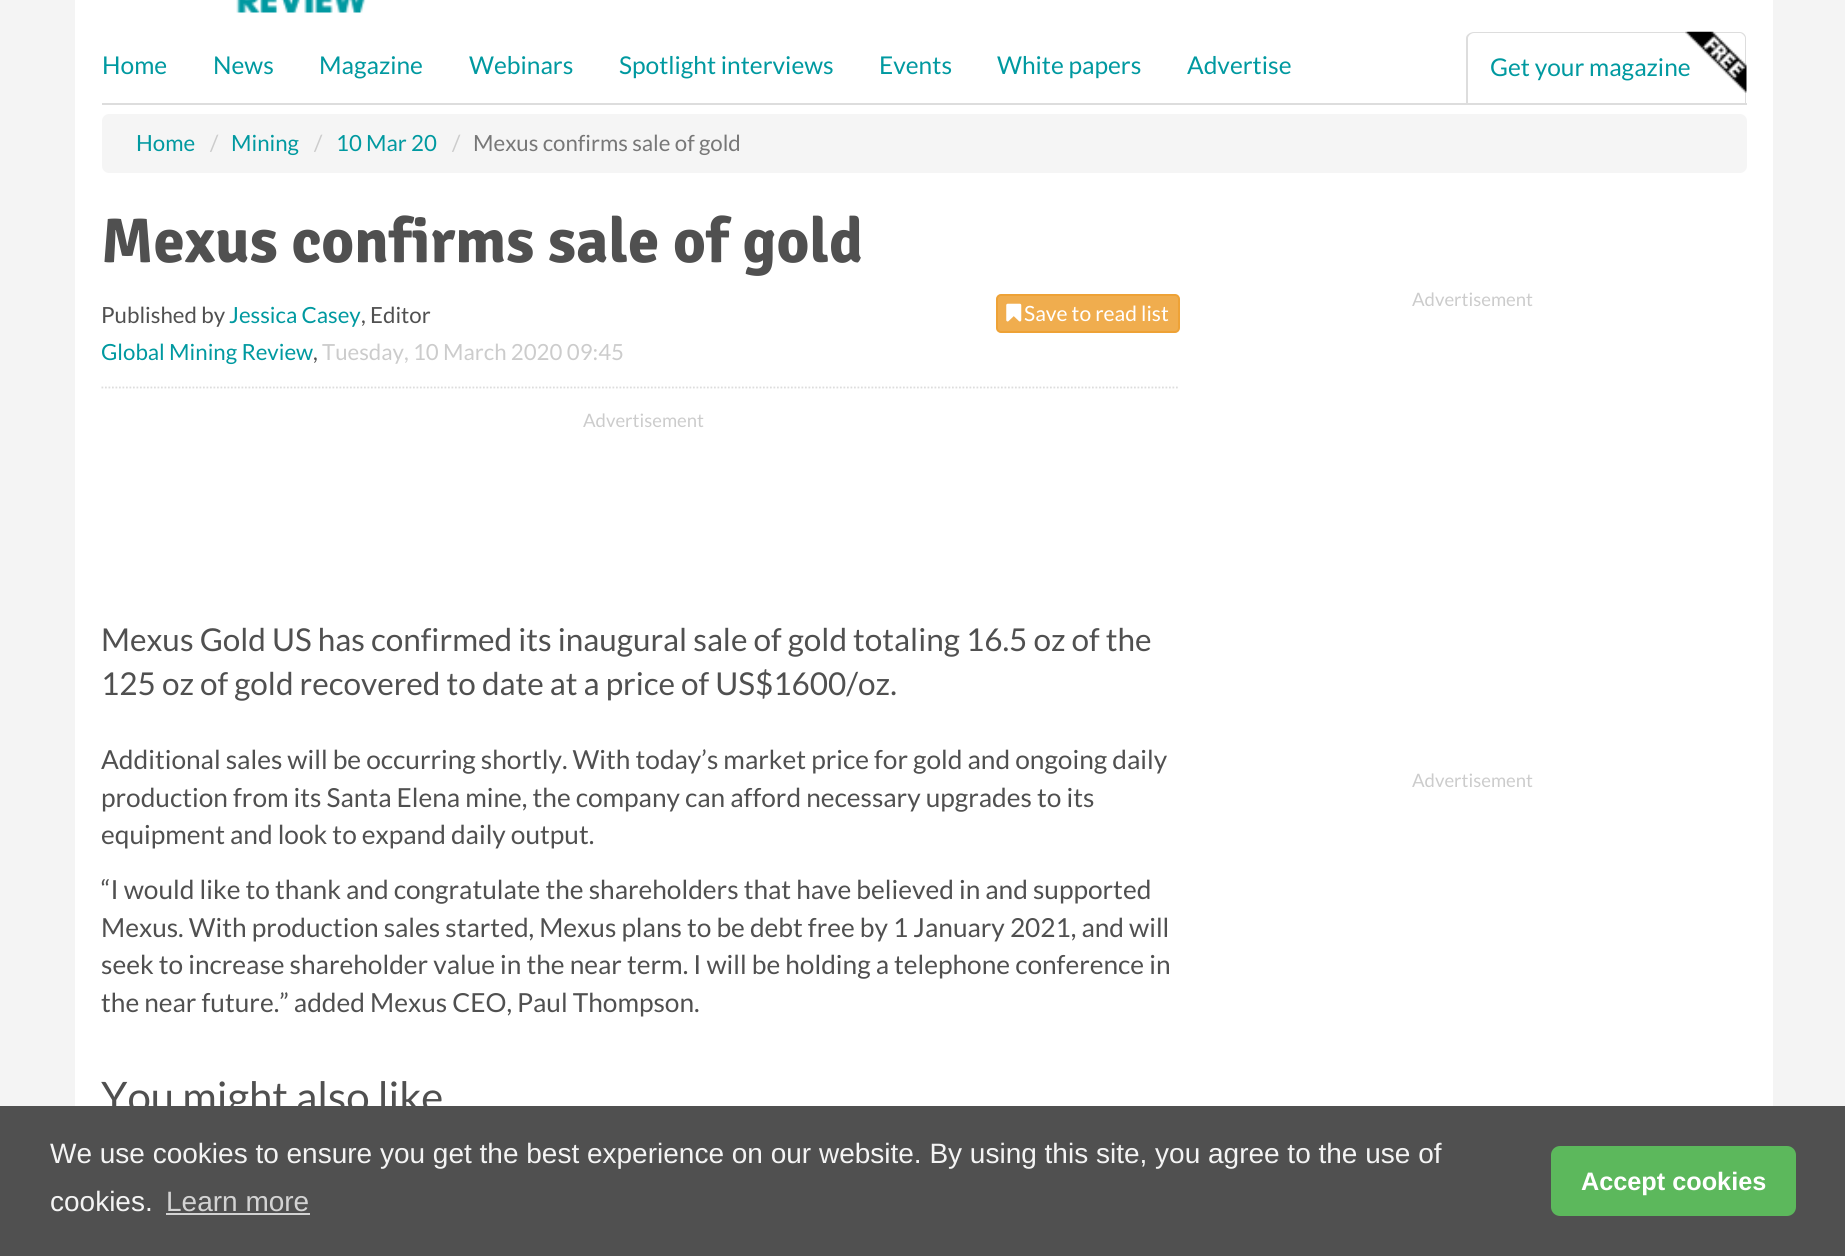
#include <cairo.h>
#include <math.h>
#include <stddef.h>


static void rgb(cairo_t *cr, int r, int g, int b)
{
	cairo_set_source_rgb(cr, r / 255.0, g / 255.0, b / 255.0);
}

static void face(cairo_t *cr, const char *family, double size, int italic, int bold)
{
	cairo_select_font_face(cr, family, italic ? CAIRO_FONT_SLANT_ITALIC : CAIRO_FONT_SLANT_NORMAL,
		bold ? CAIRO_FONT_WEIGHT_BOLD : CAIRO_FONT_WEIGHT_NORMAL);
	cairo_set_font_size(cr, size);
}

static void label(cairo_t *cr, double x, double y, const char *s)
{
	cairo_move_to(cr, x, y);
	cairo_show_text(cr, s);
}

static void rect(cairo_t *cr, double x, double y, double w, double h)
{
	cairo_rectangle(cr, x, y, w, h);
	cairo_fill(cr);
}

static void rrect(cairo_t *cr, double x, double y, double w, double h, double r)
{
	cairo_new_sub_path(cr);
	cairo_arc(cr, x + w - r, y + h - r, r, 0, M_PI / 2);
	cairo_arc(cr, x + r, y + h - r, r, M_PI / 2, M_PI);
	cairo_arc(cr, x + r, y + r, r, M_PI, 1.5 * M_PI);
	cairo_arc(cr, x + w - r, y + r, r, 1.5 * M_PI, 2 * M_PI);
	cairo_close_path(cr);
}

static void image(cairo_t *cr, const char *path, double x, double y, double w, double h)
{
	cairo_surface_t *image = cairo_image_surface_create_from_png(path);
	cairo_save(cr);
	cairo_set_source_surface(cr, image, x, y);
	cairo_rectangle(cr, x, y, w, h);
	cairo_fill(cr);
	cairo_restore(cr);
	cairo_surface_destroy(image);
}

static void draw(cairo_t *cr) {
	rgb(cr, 244, 244, 244);
	cairo_paint(cr);
	rgb(cr, 255, 255, 255);
	rect(cr, 75, 0, 1698, 32);
	image(cr, "image0.png", 236, 0, 130, 13);
	rect(cr, 75, 32, 1698, 176);
	rgb(cr, 221, 221, 221);
	rect(cr, 102, 103, 1645, 2);
	face(cr, "Lato", 24.5, 0, 0);
	rgb(cr, 0, 153, 160);
	label(cr, 102, 74, "Home");
	label(cr, 213, 74, "News");
	label(cr, 319, 74, "Magazine");
	label(cr, 469, 74, "Webinars");
	label(cr, 619, 74, "Spotlight interviews");
	label(cr, 879, 74, "Events");
	label(cr, 997, 74, "White papers");
	label(cr, 1187, 74, "Advertise");
	rgb(cr, 221, 221, 221);
	cairo_set_fill_rule(cr, CAIRO_FILL_RULE_EVEN_ODD);
	cairo_new_path(cr);
	cairo_move_to(cr, 1474, 32);
	cairo_line_to(cr, 1740, 32);
	cairo_curve_to(cr, 1743, 32, 1746, 35, 1746, 38);
	cairo_line_to(cr, 1746, 103);
	cairo_line_to(cr, 1466, 103);
	cairo_line_to(cr, 1466, 38);
	cairo_curve_to(cr, 1466, 35, 1470, 32, 1474, 32);
	cairo_close_path(cr);
	cairo_move_to(cr, 1474, 33);
	cairo_line_to(cr, 1740, 33);
	cairo_curve_to(cr, 1742, 33, 1745, 36, 1745, 38);
	cairo_line_to(cr, 1745, 103);
	cairo_line_to(cr, 1468, 103);
	cairo_line_to(cr, 1468, 38);
	cairo_curve_to(cr, 1468, 36, 1471, 33, 1474, 33);
	cairo_close_path(cr);
	cairo_fill(cr);
	rgb(cr, 0, 153, 160);
	label(cr, 1490, 76, "Get your magazine");
	image(cr, "image1.png", 1685, 31, 62, 62);
	rgb(cr, 245, 245, 245);
	rrect(cr, 102, 114, 1645, 59, 7);
	cairo_fill(cr);
	face(cr, "Lato", 22.25, 0, 0);
	rgb(cr, 0, 153, 160);
	label(cr, 136, 151, "Home");
	rgb(cr, 204, 204, 204);
	label(cr, 210, 151, "/");
	rgb(cr, 0, 153, 160);
	label(cr, 231, 151, "Mining");
	rgb(cr, 204, 204, 204);
	label(cr, 314, 151, "/");
	rgb(cr, 0, 153, 160);
	label(cr, 336, 151, "10 Mar 20");
	rgb(cr, 204, 204, 204);
	label(cr, 452, 151, "/");
	rgb(cr, 119, 119, 119);
	label(cr, 473, 151, "Mexus confirms sale of gold");
	rgb(cr, 255, 255, 255);
	rrect(cr, 75, 201, 1698, 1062, 7);
	cairo_fill(cr);
	face(cr, "Signika", 63, 0, 1);
	rgb(cr, 80, 80, 80);
	label(cr, 101, 262, "Mexus confirms sale of gold");
	face(cr, "Lato", 22.25, 0, 0);
	label(cr, 101, 323, "Published by");
	rgb(cr, 0, 153, 160);
	label(cr, 229, 323, "Jessica Casey");
	rgb(cr, 80, 80, 80);
	label(cr, 361, 323, ", Editor");
	rgb(cr, 240, 173, 78);
	rrect(cr, 997, 295, 182, 37, 4);
	cairo_fill_preserve(cr);
	rgb(cr, 238, 162, 54);
	cairo_stroke(cr);
	image(cr, "image2.png", 1006, 303, 16, 19);
	face(cr, "Lato", 21, 0, 0);
	rgb(cr, 255, 255, 255);
	label(cr, 1024, 321, "Save to read list");
	face(cr, "Lato", 22.25, 0, 0);
	rgb(cr, 0, 153, 160);
	label(cr, 101, 360, "Global Mining Review");
	rgb(cr, 80, 80, 80);
	label(cr, 313, 360, ",");
	rgb(cr, 204, 204, 204);
	label(cr, 322, 360, "Tuesday, 10 March 2020 09:45");
	cairo_new_path(cr);
	cairo_move_to(cr, 101.5, 387.5);
	cairo_line_to(cr, 1179.5, 387.5);
	rgb(cr, 221, 221, 221);
	cairo_set_line_width(cr, 1.8);
	cairo_set_dash(cr, (double[]){1.75, 1.75}, 2, 0);
	cairo_stroke(cr);
	face(cr, "Lato", 18.5, 0, 0);
	rgb(cr, 204, 204, 204);
	label(cr, 583, 427, "Advertisement");
	face(cr, "Lato", 31.5, 0, 0);
	rgb(cr, 80, 80, 80);
	label(cr, 101, 651, "Mexus Gold US has confirmed its inaugural sale of gold totaling 16.5 oz of the");
	label(cr, 101, 695, "125 oz of gold recovered to date at a price of US$1600/oz.");
	face(cr, "Lato", 26.25, 0, 0);
	label(cr, 101, 769, "Additional sales will be occurring shortly. With today’s market price for gold and ongoing daily");
	label(cr, 101, 807, "production from its Santa Elena mine, the company can afford necessary upgrades to its");
	label(cr, 101, 844, "equipment and look to expand daily output.");
	label(cr, 101, 899, "“I would like to thank and congratulate the shareholders that have believed in and supported");
	label(cr, 101, 937, "Mexus. With production sales started, Mexus plans to be debt free by 1 January 2021, and will");
	label(cr, 101, 974, "seek to increase shareholder value in the near term. I will be holding a telephone conference in");
	label(cr, 101, 1012, "the near future.” added Mexus CEO, Paul Thompson.");
	face(cr, "Lato", 42, 0, 0);
	label(cr, 101, 1112, "You might also like");
	face(cr, "Lato", 18.5, 0, 0);
	rgb(cr, 204, 204, 204);
	label(cr, 1412, 306, "Advertisement");
	label(cr, 1412, 787, "Advertisement");
	rgb(cr, 80, 80, 80);
	rect(cr, 0, 1106, 1845, 150);
	face(cr, "Liberation Sans", 28, 0, 0);
	rgb(cr, 244, 244, 244);
	label(cr, 50, 1163, "We use cookies to ensure you get the best experience on our website. By using this site, you agree to the use of");
	label(cr, 50, 1211, "cookies.");
	rgb(cr, 211, 211, 211);
	label(cr, 166, 1211, "Learn more");
	rect(cr, 166, 1213, 144, 2);
	rgb(cr, 92, 184, 92);
	rrect(cr, 1551, 1146, 245, 70, 9);
	cairo_fill(cr);
	face(cr, "Liberation Sans", 25.25, 0, 1);
	rgb(cr, 255, 255, 255);
	label(cr, 1581, 1190, "Accept cookies");
}

int main(void) {
	cairo_surface_t *surface = cairo_image_surface_create(CAIRO_FORMAT_RGB24, 1845, 1256);
	cairo_t *cr = cairo_create(surface);
	cairo_font_options_t *options = cairo_font_options_create();
	cairo_font_options_set_hint_metrics(options, CAIRO_HINT_METRICS_OFF);
	cairo_font_options_set_hint_style(options, CAIRO_HINT_STYLE_NONE);
	cairo_set_font_options(cr, options);
	cairo_set_miter_limit(cr, 4);
	draw(cr);
	cairo_surface_write_to_png(surface, "render.png");
	cairo_font_options_destroy(options);
	cairo_destroy(cr);
	cairo_surface_destroy(surface);
	return 0;
}
